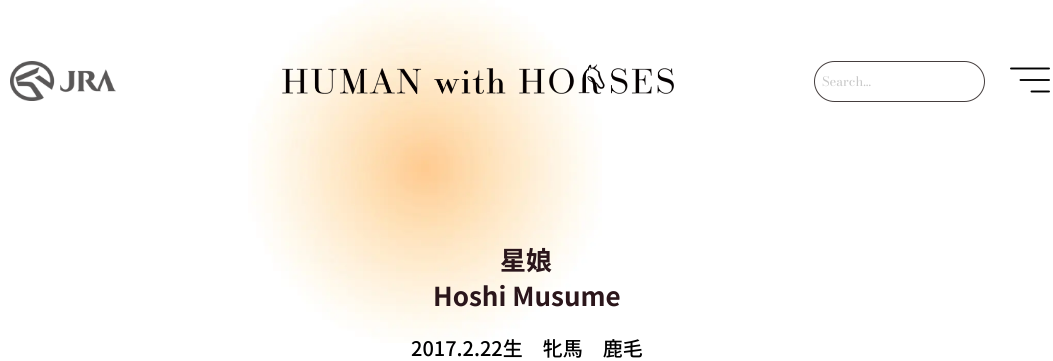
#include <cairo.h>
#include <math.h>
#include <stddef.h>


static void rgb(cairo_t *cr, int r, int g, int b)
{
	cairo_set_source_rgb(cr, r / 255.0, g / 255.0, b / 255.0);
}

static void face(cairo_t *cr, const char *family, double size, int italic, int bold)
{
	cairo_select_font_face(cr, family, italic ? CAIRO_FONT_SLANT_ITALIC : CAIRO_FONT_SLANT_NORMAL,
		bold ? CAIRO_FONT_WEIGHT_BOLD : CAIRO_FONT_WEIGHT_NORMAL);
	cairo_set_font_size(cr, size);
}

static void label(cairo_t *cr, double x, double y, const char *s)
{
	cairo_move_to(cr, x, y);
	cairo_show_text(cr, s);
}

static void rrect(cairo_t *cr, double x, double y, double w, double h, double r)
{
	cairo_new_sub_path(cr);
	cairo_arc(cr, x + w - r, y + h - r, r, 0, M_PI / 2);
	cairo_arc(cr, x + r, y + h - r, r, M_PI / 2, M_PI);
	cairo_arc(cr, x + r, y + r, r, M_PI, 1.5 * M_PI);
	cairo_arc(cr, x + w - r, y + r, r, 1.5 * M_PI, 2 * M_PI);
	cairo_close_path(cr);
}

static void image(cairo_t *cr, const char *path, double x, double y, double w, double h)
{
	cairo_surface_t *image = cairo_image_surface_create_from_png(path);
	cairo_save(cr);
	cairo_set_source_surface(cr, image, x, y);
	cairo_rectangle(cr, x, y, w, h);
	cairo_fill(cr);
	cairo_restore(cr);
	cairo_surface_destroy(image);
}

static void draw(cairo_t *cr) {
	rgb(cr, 255, 255, 255);
	cairo_paint(cr);
	image(cr, "image0.png", 248, 0, 354, 343);
	image(cr, "image1.png", 10, 61, 106, 40);
	image(cr, "image2.png", 282, 64, 392, 31);
	rrect(cr, 814.5, 61.5, 170, 40, 20);
	rgb(cr, 69, 62, 62);
	cairo_set_line_width(cr, 1);
	cairo_stroke(cr);
	face(cr, "Bodoni Moda", 13, 0, 0);
	rgb(cr, 199, 199, 199);
	label(cr, 822, 86, "Search…");
	cairo_new_path(cr);
	cairo_move_to(cr, 1011, 68.5);
	cairo_line_to(cr, 1049, 68.5);
	cairo_move_to(cr, 1020.5, 80);
	cairo_line_to(cr, 1049, 80);
	cairo_move_to(cr, 1031.5, 91.5);
	cairo_line_to(cr, 1049, 91.5);
	rgb(cr, 0, 0, 0);
	cairo_set_line_width(cr, 1.9);
	cairo_set_line_cap(cr, CAIRO_LINE_CAP_ROUND);
	cairo_set_line_join(cr, CAIRO_LINE_JOIN_ROUND);
	cairo_stroke(cr);
	face(cr, "Noto Sans JP", 26, 0, 1);
	rgb(cr, 43, 22, 27);
	label(cr, 500, 270, "星娘");
	label(cr, 433, 306, "Hoshi Musume");
	face(cr, "Noto Sans JP Medium", 20, 0, 0);
	rgb(cr, 0, 0, 0);
	label(cr, 411, 356, "2017.2.22生　牝馬　鹿毛");
}

int main(void) {
	cairo_surface_t *surface = cairo_image_surface_create(CAIRO_FORMAT_RGB24, 1053, 361);
	cairo_t *cr = cairo_create(surface);
	cairo_font_options_t *options = cairo_font_options_create();
	cairo_font_options_set_hint_metrics(options, CAIRO_HINT_METRICS_OFF);
	cairo_font_options_set_hint_style(options, CAIRO_HINT_STYLE_NONE);
	cairo_set_font_options(cr, options);
	cairo_set_miter_limit(cr, 4);
	draw(cr);
	cairo_surface_write_to_png(surface, "render.png");
	cairo_font_options_destroy(options);
	cairo_destroy(cr);
	cairo_surface_destroy(surface);
	return 0;
}
